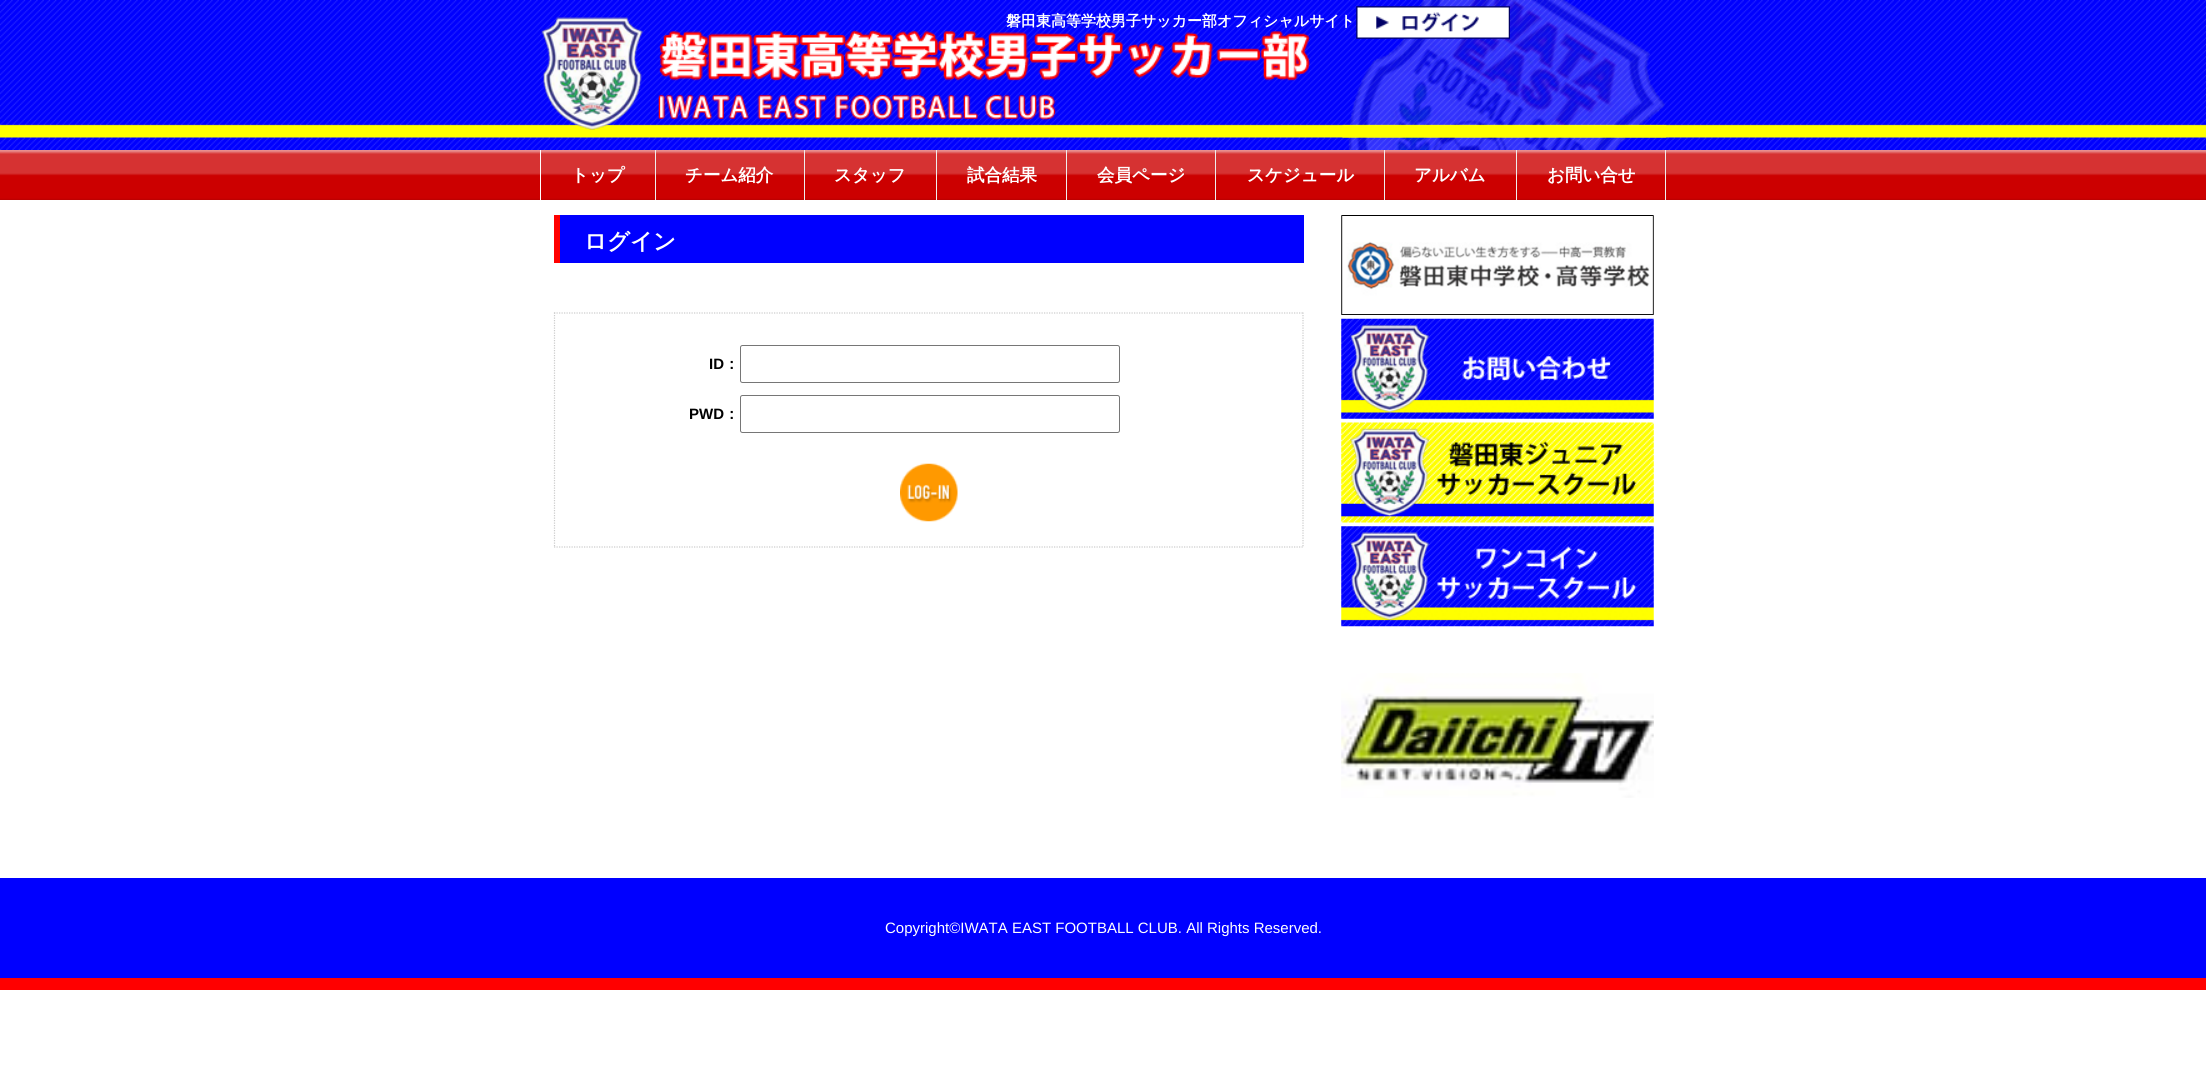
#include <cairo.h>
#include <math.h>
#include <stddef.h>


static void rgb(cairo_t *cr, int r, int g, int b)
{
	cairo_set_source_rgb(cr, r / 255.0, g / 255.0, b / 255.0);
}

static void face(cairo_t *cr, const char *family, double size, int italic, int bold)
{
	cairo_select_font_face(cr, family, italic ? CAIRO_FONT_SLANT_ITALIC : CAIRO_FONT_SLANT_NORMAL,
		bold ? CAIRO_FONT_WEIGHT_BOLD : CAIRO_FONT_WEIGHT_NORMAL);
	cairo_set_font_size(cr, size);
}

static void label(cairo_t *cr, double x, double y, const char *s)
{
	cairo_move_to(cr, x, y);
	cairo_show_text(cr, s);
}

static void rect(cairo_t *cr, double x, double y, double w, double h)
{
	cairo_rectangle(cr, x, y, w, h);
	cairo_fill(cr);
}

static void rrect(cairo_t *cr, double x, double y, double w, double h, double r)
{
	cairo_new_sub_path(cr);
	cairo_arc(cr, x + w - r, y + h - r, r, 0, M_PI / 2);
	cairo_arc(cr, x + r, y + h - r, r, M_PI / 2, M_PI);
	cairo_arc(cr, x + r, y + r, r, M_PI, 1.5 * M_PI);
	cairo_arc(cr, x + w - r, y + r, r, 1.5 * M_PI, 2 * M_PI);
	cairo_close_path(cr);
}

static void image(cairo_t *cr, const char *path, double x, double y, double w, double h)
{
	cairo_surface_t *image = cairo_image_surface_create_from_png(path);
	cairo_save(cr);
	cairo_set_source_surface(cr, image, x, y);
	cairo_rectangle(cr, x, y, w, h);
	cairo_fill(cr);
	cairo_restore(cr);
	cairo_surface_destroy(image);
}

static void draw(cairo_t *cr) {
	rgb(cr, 255, 255, 255);
	cairo_paint(cr);
	image(cr, "image0.png", 0, 0, 2206, 150);
	image(cr, "image1.png", 1342, 0, 325, 150);
	image(cr, "image3.png", 541, 17, 769, 113);
	face(cr, "WenQuanYi Zen Hei", 15, 0, 1);
	rgb(cr, 255, 255, 255);
	label(cr, 1006, 26, "磐田東高等学校男子サッカー部オフィシャルサイト");
	image(cr, "image2.png", 1356, 6, 154, 33);
	image(cr, "image4.png", 0, 150, 2206, 50);
	rect(cr, 540, 150, 1, 50);
	rgb(cr, 238, 238, 238);
	rect(cr, 655, 150, 1, 50);
	face(cr, "WenQuanYi Zen Hei", 17.5, 0, 1);
	rgb(cr, 255, 255, 255);
	label(cr, 571, 181, "トップ");
	rgb(cr, 238, 238, 238);
	rect(cr, 804, 150, 1, 50);
	rgb(cr, 255, 255, 255);
	label(cr, 685, 181, "チーム紹介");
	rgb(cr, 238, 238, 238);
	rect(cr, 936, 150, 1, 50);
	rgb(cr, 255, 255, 255);
	label(cr, 834, 181, "スタッフ");
	rgb(cr, 238, 238, 238);
	rect(cr, 1066, 150, 1, 50);
	rgb(cr, 255, 255, 255);
	label(cr, 967, 181, "試合結果");
	rgb(cr, 238, 238, 238);
	rect(cr, 1215, 150, 1, 50);
	rgb(cr, 255, 255, 255);
	label(cr, 1097, 181, "会員ページ");
	rgb(cr, 238, 238, 238);
	rect(cr, 1384, 150, 1, 50);
	rgb(cr, 255, 255, 255);
	label(cr, 1247, 181, "スケジュール");
	rgb(cr, 238, 238, 238);
	rect(cr, 1516, 150, 1, 50);
	rgb(cr, 255, 255, 255);
	label(cr, 1414, 181, "アルバム");
	rgb(cr, 238, 238, 238);
	rect(cr, 1665, 150, 1, 50);
	rgb(cr, 255, 255, 255);
	label(cr, 1547, 181, "お問い合せ");
	rgb(cr, 0, 0, 255);
	rect(cr, 560, 215, 744, 48);
	rgb(cr, 255, 0, 0);
	rect(cr, 554, 215, 6, 48);
	face(cr, "WenQuanYi Zen Hei", 22.5, 0, 1);
	rgb(cr, 255, 255, 255);
	label(cr, 584, 249, "ログイン");
	cairo_new_path(cr);
	cairo_move_to(cr, 554, 313);
	cairo_line_to(cr, 1304, 313);
	rgb(cr, 204, 204, 204);
	cairo_set_line_width(cr, 1.2);
	cairo_set_dash(cr, (double[]){1.25, 1.25}, 2, 0);
	cairo_stroke(cr);
	cairo_new_path(cr);
	cairo_move_to(cr, 1303, 312.5);
	cairo_line_to(cr, 1303, 547.5);
	cairo_stroke(cr);
	cairo_new_path(cr);
	cairo_move_to(cr, 554, 547);
	cairo_line_to(cr, 1304, 547);
	cairo_stroke(cr);
	cairo_new_path(cr);
	cairo_move_to(cr, 554.5, 312.5);
	cairo_line_to(cr, 554.5, 547.5);
	cairo_stroke(cr);
	face(cr, "Liberation Sans", 15, 0, 1);
	rgb(cr, 0, 0, 0);
	label(cr, 709, 369, "ID");
	face(cr, "WenQuanYi Zen Hei", 15, 0, 1);
	label(cr, 724, 369, "：");
	rrect(cr, 740.5, 345.5, 379, 37, 2);
	rgb(cr, 118, 118, 118);
	cairo_set_line_width(cr, 1);
	cairo_set_dash(cr, NULL, 0, 0);
	cairo_stroke(cr);
	face(cr, "Liberation Sans", 15, 0, 1);
	rgb(cr, 0, 0, 0);
	label(cr, 689, 419, "PWD");
	face(cr, "WenQuanYi Zen Hei", 15, 0, 1);
	label(cr, 724, 419, "：");
	rrect(cr, 740.5, 395.5, 379, 37, 2);
	rgb(cr, 118, 118, 118);
	cairo_stroke(cr);
	image(cr, "image5.png", 900, 463, 58, 59);
	image(cr, "image6.png", 1341, 215, 313, 100);
	image(cr, "image7.png", 1341, 318, 313, 101);
	image(cr, "image8.png", 1341, 422, 313, 101);
	image(cr, "image9.png", 1341, 526, 313, 101);
	image(cr, "image10.png", 1341, 673, 313, 125);
	rgb(cr, 0, 0, 255);
	rect(cr, 0, 878, 2206, 100);
	rgb(cr, 255, 0, 0);
	rect(cr, 0, 978, 2206, 12);
	face(cr, "Liberation Sans", 15, 0, 0);
	rgb(cr, 255, 255, 255);
	label(cr, 885, 933, "Copyright©IWATA EAST FOOTBALL CLUB. All Rights Reserved.");
}

int main(void) {
	cairo_surface_t *surface = cairo_image_surface_create(CAIRO_FORMAT_RGB24, 2206, 1069);
	cairo_t *cr = cairo_create(surface);
	cairo_font_options_t *options = cairo_font_options_create();
	cairo_font_options_set_hint_metrics(options, CAIRO_HINT_METRICS_OFF);
	cairo_font_options_set_hint_style(options, CAIRO_HINT_STYLE_NONE);
	cairo_set_font_options(cr, options);
	cairo_set_miter_limit(cr, 4);
	draw(cr);
	cairo_surface_write_to_png(surface, "render.png");
	cairo_font_options_destroy(options);
	cairo_destroy(cr);
	cairo_surface_destroy(surface);
	return 0;
}
